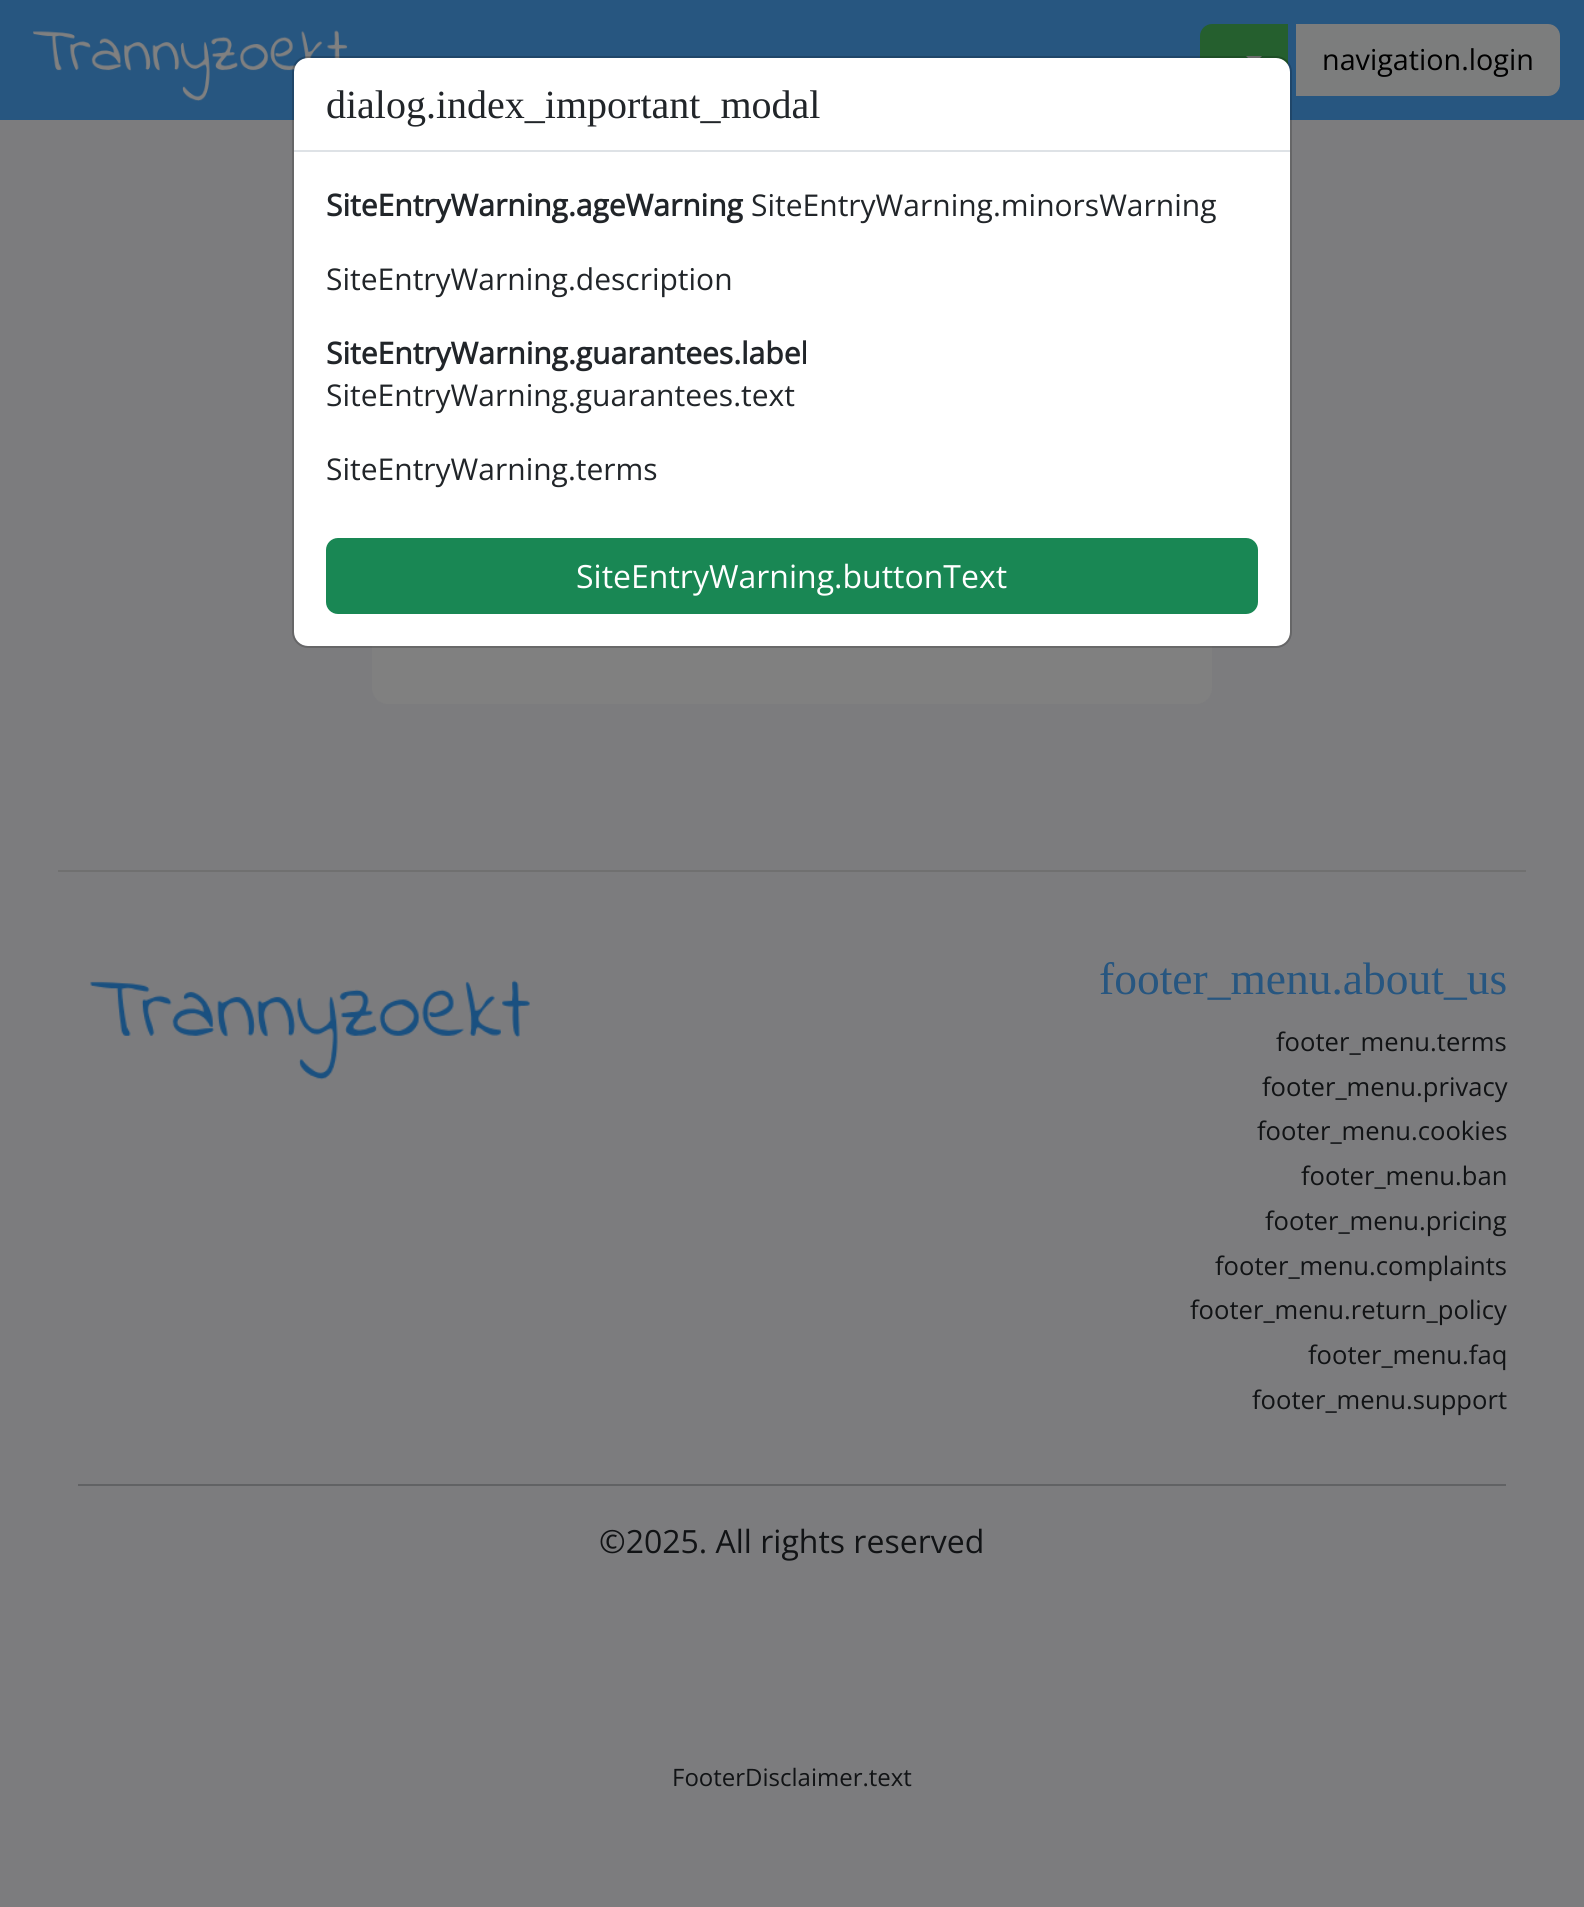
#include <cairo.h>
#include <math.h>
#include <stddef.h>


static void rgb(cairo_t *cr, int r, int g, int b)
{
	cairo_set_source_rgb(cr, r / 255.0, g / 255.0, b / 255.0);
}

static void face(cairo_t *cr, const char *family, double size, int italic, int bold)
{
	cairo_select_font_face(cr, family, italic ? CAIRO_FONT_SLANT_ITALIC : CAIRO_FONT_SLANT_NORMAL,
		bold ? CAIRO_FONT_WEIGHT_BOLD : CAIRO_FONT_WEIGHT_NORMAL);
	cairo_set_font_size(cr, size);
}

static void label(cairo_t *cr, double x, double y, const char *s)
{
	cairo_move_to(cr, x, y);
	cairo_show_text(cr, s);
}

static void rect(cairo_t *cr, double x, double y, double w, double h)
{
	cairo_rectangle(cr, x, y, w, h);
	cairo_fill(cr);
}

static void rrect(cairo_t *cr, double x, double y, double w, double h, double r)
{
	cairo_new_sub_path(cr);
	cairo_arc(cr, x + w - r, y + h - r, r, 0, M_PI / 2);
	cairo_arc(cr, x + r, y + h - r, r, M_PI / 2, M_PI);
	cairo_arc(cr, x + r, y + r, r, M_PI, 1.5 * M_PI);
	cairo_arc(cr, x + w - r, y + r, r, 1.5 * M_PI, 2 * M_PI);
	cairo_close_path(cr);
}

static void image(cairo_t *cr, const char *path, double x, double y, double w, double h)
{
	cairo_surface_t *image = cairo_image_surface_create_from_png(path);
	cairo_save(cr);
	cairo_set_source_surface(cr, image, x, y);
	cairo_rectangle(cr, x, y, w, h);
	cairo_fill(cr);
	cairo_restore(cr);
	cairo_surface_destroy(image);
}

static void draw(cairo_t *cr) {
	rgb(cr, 124, 124, 126);
	cairo_paint(cr);
	rgb(cr, 128, 128, 128);
	rrect(cr, 372, -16, 840, 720, 16);
	cairo_fill(cr);
	rgb(cr, 39, 86, 128);
	rect(cr, 0, 0, 1584, 120);
	image(cr, "image0.png", 33, 30, 315, 71);
	rgb(cr, 37, 95, 46);
	cairo_new_path(cr);
	cairo_move_to(cr, 1212, 25);
	cairo_line_to(cr, 1287, 25);
	cairo_line_to(cr, 1287, 95);
	cairo_line_to(cr, 1212, 95);
	cairo_curve_to(cr, 1206, 95, 1201, 90, 1201, 84);
	cairo_line_to(cr, 1201, 36);
	cairo_curve_to(cr, 1201, 30, 1206, 25, 1212, 25);
	cairo_close_path(cr);
	cairo_fill_preserve(cr);
	cairo_stroke(cr);
	rgb(cr, 128, 128, 128);
	cairo_new_path(cr);
	cairo_move_to(cr, 1246, 56);
	cairo_line_to(cr, 1262, 56);
	cairo_line_to(cr, 1254, 64);
	cairo_close_path(cr);
	cairo_fill(cr);
	rgb(cr, 124, 125, 125);
	cairo_new_path(cr);
	cairo_move_to(cr, 1297, 25);
	cairo_line_to(cr, 1548, 25);
	cairo_curve_to(cr, 1554, 25, 1559, 30, 1559, 36);
	cairo_line_to(cr, 1559, 84);
	cairo_curve_to(cr, 1559, 90, 1554, 95, 1548, 95);
	cairo_line_to(cr, 1297, 95);
	cairo_close_path(cr);
	cairo_fill_preserve(cr);
	cairo_stroke(cr);
	face(cr, "Open Sans", 28.75, 0, 0);
	rgb(cr, 0, 0, 0);
	label(cr, 1322, 70, "navigation.login");
	rgb(cr, 112, 112, 112);
	rect(cr, 58, 870, 1468, 2);
	image(cr, "image1.png", 90, 980, 440, 100);
	face(cr, "Liberation Serif", 45.5, 0, 0);
	rgb(cr, 39, 86, 128);
	label(cr, 1099, 994, "footer_menu.about_us");
	face(cr, "Open Sans", 25.6, 0, 0);
	rgb(cr, 17, 19, 21);
	label(cr, 1276, 1051, "footer_menu.terms");
	label(cr, 1262, 1096, "footer_menu.privacy");
	label(cr, 1257, 1140, "footer_menu.cookies");
	label(cr, 1301, 1185, "footer_menu.ban");
	label(cr, 1265, 1230, "footer_menu.pricing");
	label(cr, 1215, 1275, "footer_menu.complaints");
	label(cr, 1190, 1319, "footer_menu.return_policy");
	label(cr, 1308, 1364, "footer_menu.faq");
	label(cr, 1252, 1409, "footer_menu.support");
	rgb(cr, 97, 98, 100);
	rect(cr, 78, 1484, 1428, 2);
	face(cr, "Open Sans", 32, 0, 0);
	rgb(cr, 17, 19, 21);
	label(cr, 599, 1553, "©2025. All rights reserved");
	face(cr, "Open Sans", 24, 0, 0);
	label(cr, 672, 1786, "FooterDisclaimer.text");
	rgb(cr, 255, 255, 255);
	rrect(cr, 294, 58, 996, 588, 14);
	cairo_fill(cr);
	rrect(cr, 293, 57, 998, 590, 15);
	cairo_set_source_rgba(cr, 0, 0, 0, 0.18);
	cairo_stroke(cr);
	rgb(cr, 222, 226, 230);
	rect(cr, 294, 150, 996, 2);
	face(cr, "Liberation Serif", 40, 0, 0);
	rgb(cr, 33, 37, 41);
	label(cr, 326, 118, "dialog.index_important_modal");
	face(cr, "Open Sans", 30, 0, 1);
	label(cr, 326, 216, "SiteEntryWarning.ageWarning");
	face(cr, "Open Sans", 30, 0, 0);
	label(cr, 751, 216, "SiteEntryWarning.minorsWarning");
	label(cr, 326, 290, "SiteEntryWarning.description");
	face(cr, "Open Sans", 30, 0, 1);
	label(cr, 326, 364, "SiteEntryWarning.guarantees.label");
	face(cr, "Open Sans", 30, 0, 0);
	label(cr, 326, 406, "SiteEntryWarning.guarantees.text");
	label(cr, 326, 480, "SiteEntryWarning.terms");
	rgb(cr, 25, 135, 84);
	rrect(cr, 327, 539, 930, 74, 11);
	cairo_fill_preserve(cr);
	cairo_stroke(cr);
	face(cr, "Open Sans", 32, 0, 0);
	rgb(cr, 255, 255, 255);
	label(cr, 576, 588, "SiteEntryWarning.buttonText");
}

int main(void) {
	cairo_surface_t *surface = cairo_image_surface_create(CAIRO_FORMAT_RGB24, 1584, 1907);
	cairo_t *cr = cairo_create(surface);
	cairo_font_options_t *options = cairo_font_options_create();
	cairo_font_options_set_hint_metrics(options, CAIRO_HINT_METRICS_OFF);
	cairo_font_options_set_hint_style(options, CAIRO_HINT_STYLE_NONE);
	cairo_set_font_options(cr, options);
	cairo_set_miter_limit(cr, 4);
	draw(cr);
	cairo_surface_write_to_png(surface, "render.png");
	cairo_font_options_destroy(options);
	cairo_destroy(cr);
	cairo_surface_destroy(surface);
	return 0;
}
